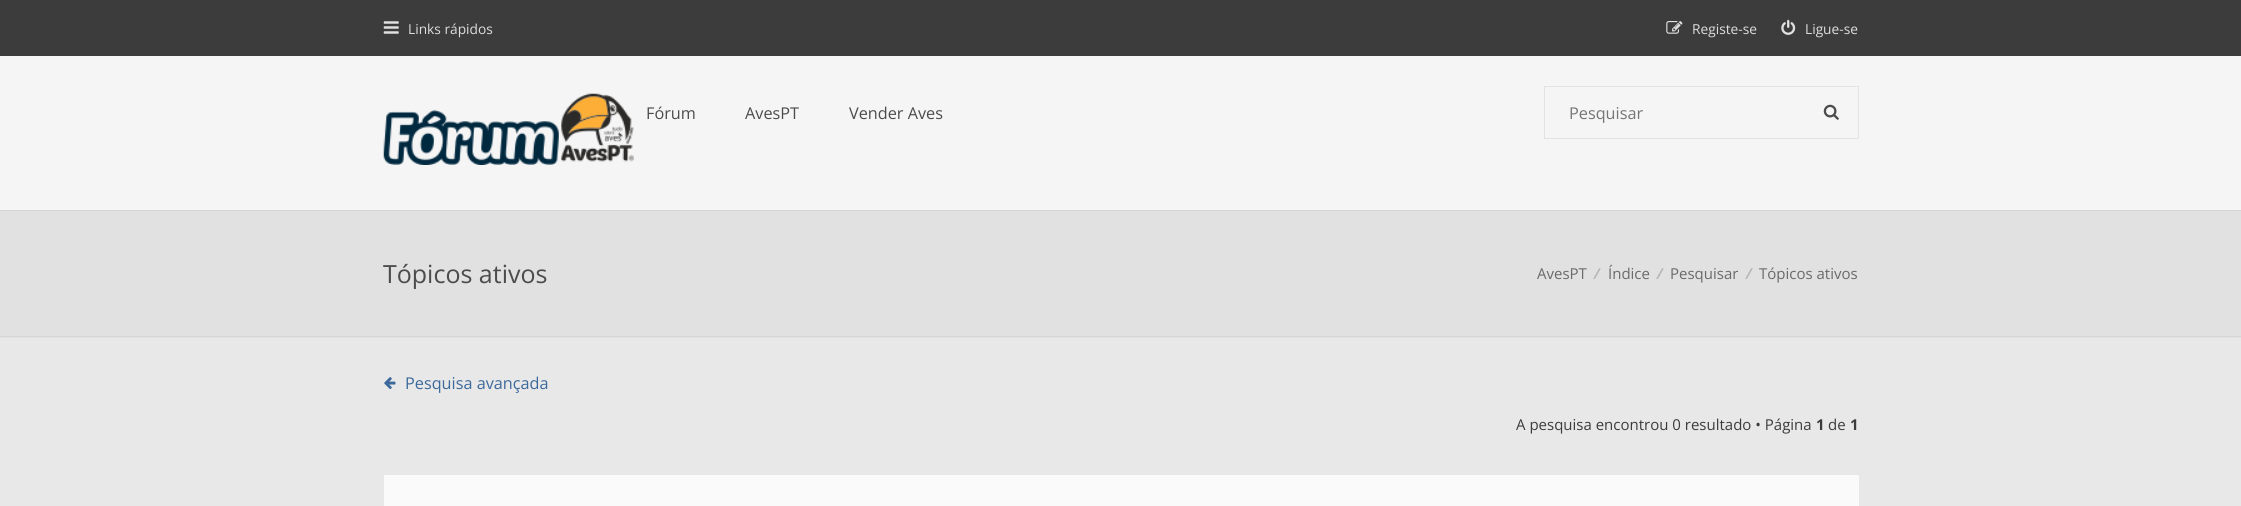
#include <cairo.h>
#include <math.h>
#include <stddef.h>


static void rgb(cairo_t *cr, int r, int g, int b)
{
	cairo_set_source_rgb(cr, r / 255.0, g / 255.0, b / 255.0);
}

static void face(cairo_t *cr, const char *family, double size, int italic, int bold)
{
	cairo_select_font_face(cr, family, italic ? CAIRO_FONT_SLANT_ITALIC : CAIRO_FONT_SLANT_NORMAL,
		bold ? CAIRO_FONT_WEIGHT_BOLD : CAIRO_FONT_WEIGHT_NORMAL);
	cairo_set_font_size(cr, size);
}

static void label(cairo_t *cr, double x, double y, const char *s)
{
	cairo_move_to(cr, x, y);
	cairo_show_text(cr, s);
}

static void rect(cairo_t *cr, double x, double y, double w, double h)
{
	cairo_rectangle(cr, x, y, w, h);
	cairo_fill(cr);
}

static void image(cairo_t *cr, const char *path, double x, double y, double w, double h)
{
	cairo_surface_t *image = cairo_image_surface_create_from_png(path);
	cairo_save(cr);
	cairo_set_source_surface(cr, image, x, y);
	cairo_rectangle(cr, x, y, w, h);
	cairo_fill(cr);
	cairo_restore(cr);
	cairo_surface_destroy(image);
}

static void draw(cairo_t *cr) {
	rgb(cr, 232, 232, 232);
	cairo_paint(cr);
	rgb(cr, 60, 60, 60);
	rect(cr, 0, 0, 2241, 56);
	image(cr, "image0.png", 383, 21, 16, 13);
	face(cr, "Open Sans", 13.75, 0, 0);
	rgb(cr, 221, 221, 221);
	label(cr, 408, 34, "Links rápidos");
	image(cr, "image1.png", 1666, 21, 17, 13);
	label(cr, 1692, 34, "Registe-se");
	image(cr, "image2.png", 1781, 19, 15, 16);
	label(cr, 1805, 34, "Ligue-se");
	rgb(cr, 245, 245, 245);
	rect(cr, 0, 56, 2241, 154);
	image(cr, "image3.png", 383, 93, 251, 72);
	face(cr, "Open Sans", 16.25, 0, 0);
	rgb(cr, 76, 76, 76);
	label(cr, 646, 119, "Fórum");
	label(cr, 745, 119, "AvesPT");
	label(cr, 849, 119, "Vender Aves");
	cairo_rectangle(cr, 1544.5, 86.5, 314, 52);
	rgb(cr, 227, 227, 227);
	cairo_set_line_width(cr, 1);
	cairo_stroke(cr);
	rgb(cr, 117, 117, 117);
	label(cr, 1569, 119, "Pesquisar");
	image(cr, "image4.png", 1823, 104, 16, 16);
	rgb(cr, 225, 225, 225);
	rect(cr, 0, 211, 2241, 127);
	rgb(cr, 214, 214, 214);
	rect(cr, 0, 210, 2241, 1);
	rect(cr, 0, 336, 2241, 1);
	face(cr, "Open Sans", 25, 0, 0);
	rgb(cr, 76, 76, 76);
	label(cr, 383, 283, "Tópicos ativos");
	face(cr, "Open Sans", 15, 0, 0);
	rgb(cr, 106, 106, 106);
	label(cr, 1537, 279, "AvesPT");
	face(cr, "Open Sans", 15, 0, 1);
	rgb(cr, 180, 180, 180);
	label(cr, 1596, 279, "⁄");
	face(cr, "Open Sans", 15, 0, 0);
	rgb(cr, 106, 106, 106);
	label(cr, 1608, 279, "Índice");
	face(cr, "Open Sans", 15, 0, 1);
	rgb(cr, 180, 180, 180);
	label(cr, 1659, 279, "⁄");
	face(cr, "Open Sans", 15, 0, 0);
	rgb(cr, 106, 106, 106);
	label(cr, 1670, 279, "Pesquisar");
	face(cr, "Open Sans", 15, 0, 1);
	rgb(cr, 180, 180, 180);
	label(cr, 1748, 279, "⁄");
	face(cr, "Open Sans", 15, 0, 0);
	rgb(cr, 106, 106, 106);
	label(cr, 1759, 279, "Tópicos ativos");
	image(cr, "image5.png", 384, 377, 12, 12);
	face(cr, "Open Sans", 16.25, 0, 0);
	rgb(cr, 60, 105, 156);
	label(cr, 405, 389, "Pesquisa avançada");
	face(cr, "Open Sans", 15, 0, 0);
	rgb(cr, 60, 60, 60);
	label(cr, 1516, 430, "A pesquisa encontrou 0 resultado • Página");
	face(cr, "Open Sans", 15, 0, 1);
	label(cr, 1816, 430, "1");
	face(cr, "Open Sans", 15, 0, 0);
	label(cr, 1828, 430, "de");
	face(cr, "Open Sans", 15, 0, 1);
	label(cr, 1850, 430, "1");
	rgb(cr, 250, 250, 250);
	rect(cr, 384, 475, 1475, 31);
}

int main(void) {
	cairo_surface_t *surface = cairo_image_surface_create(CAIRO_FORMAT_RGB24, 2241, 506);
	cairo_t *cr = cairo_create(surface);
	cairo_font_options_t *options = cairo_font_options_create();
	cairo_font_options_set_hint_metrics(options, CAIRO_HINT_METRICS_OFF);
	cairo_font_options_set_hint_style(options, CAIRO_HINT_STYLE_NONE);
	cairo_set_font_options(cr, options);
	cairo_set_miter_limit(cr, 4);
	draw(cr);
	cairo_surface_write_to_png(surface, "render.png");
	cairo_font_options_destroy(options);
	cairo_destroy(cr);
	cairo_surface_destroy(surface);
	return 0;
}
